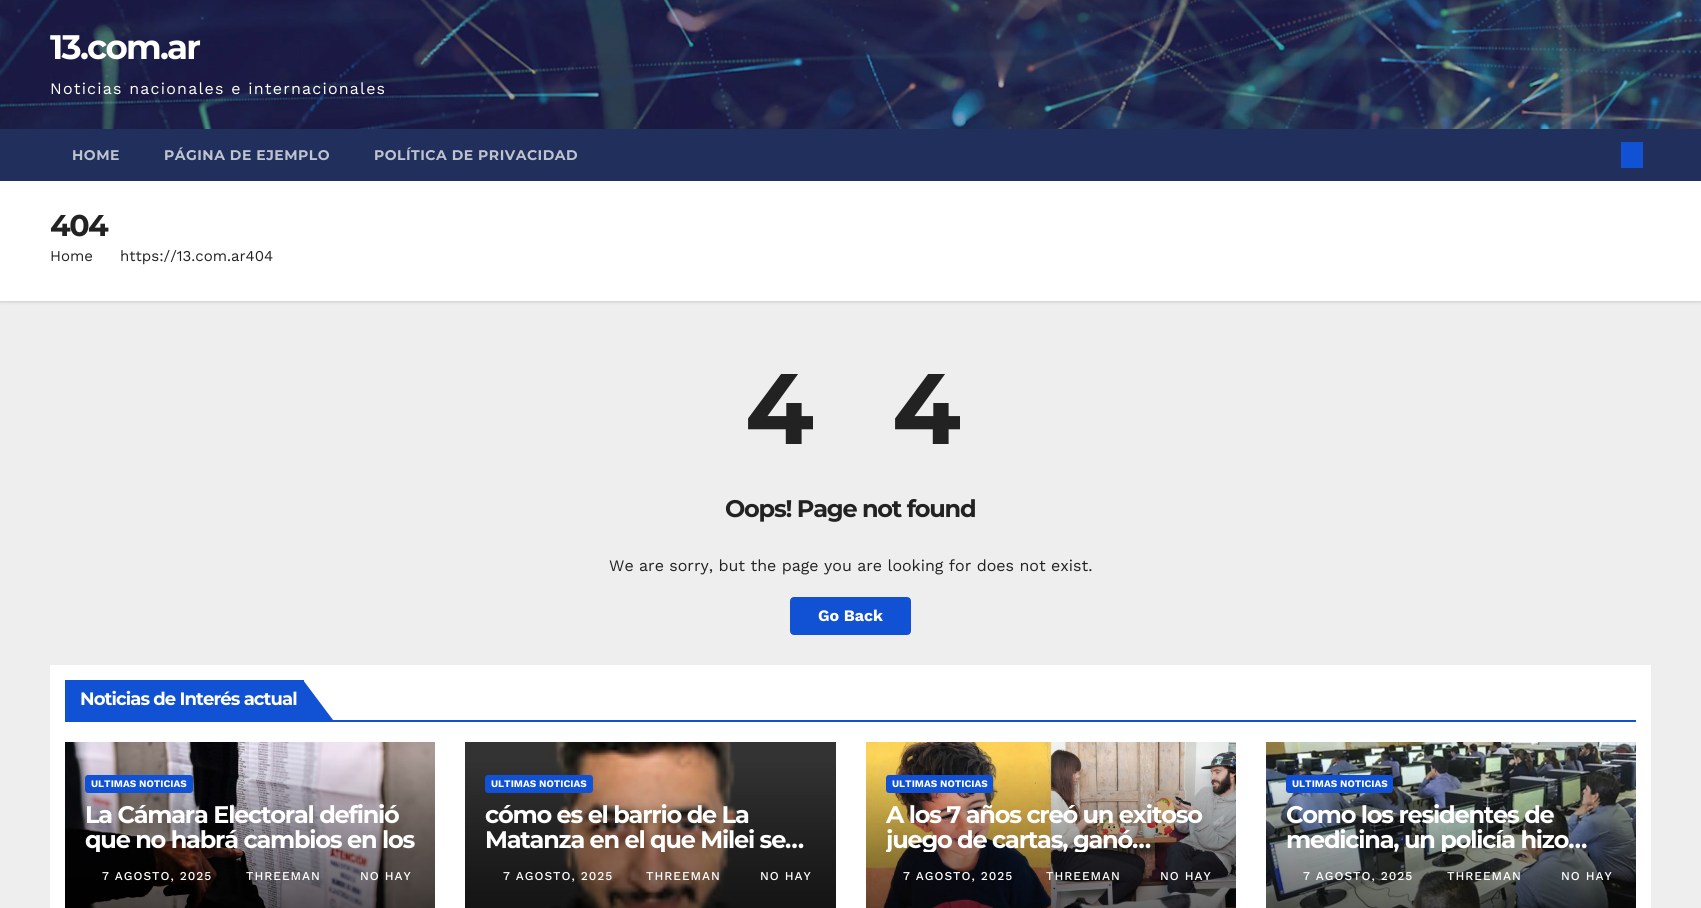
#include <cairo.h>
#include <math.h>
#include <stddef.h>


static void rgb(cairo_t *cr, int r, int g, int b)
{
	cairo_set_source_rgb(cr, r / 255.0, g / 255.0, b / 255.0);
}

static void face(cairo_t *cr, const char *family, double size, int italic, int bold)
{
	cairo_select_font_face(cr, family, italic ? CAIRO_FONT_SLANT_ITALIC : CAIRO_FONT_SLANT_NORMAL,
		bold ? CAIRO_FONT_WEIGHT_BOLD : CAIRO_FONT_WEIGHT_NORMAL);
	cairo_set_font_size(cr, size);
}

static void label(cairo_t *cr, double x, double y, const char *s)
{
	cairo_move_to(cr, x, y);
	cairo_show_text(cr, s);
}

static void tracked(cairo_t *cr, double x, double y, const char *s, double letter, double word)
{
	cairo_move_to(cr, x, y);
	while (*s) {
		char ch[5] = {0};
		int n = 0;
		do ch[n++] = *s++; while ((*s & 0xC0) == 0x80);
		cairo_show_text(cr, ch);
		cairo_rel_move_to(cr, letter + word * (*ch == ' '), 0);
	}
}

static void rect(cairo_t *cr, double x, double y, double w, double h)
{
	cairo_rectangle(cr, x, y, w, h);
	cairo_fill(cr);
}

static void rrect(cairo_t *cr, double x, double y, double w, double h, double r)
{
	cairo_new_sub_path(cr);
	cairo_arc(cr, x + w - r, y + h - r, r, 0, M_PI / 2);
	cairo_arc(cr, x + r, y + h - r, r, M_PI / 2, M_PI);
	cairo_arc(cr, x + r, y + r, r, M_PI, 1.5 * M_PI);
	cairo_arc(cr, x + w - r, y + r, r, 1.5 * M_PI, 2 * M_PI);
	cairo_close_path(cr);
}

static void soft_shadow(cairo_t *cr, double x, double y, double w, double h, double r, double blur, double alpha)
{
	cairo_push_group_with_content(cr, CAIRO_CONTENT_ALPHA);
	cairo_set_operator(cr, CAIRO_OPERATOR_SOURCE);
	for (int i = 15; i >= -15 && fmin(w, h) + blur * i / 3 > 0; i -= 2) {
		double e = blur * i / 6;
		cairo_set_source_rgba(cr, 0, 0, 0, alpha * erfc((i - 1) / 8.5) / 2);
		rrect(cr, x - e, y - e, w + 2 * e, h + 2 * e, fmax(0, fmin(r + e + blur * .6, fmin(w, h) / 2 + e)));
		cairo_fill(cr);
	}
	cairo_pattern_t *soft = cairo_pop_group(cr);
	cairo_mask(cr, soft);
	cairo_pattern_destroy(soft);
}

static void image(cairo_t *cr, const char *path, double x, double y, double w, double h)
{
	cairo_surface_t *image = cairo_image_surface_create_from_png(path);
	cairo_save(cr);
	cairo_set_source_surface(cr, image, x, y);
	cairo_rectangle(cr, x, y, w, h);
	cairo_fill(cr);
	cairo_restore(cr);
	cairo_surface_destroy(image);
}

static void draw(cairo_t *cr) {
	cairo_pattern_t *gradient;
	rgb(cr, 238, 238, 238);
	cairo_paint(cr);
	image(cr, "image0.png", 0, 0, 1701, 129);
	face(cr, "Montserrat", 34, 0, 1);
	rgb(cr, 255, 255, 255);
	tracked(cr, 50, 59, "13.com.ar", -1.75, 0);
	face(cr, "Work Sans", 16, 0, 0);
	tracked(cr, 50, 94, "Noticias nacionales e internacionales", 1.2, 0);
	rgb(cr, 0, 0, 0);
	soft_shadow(cr, 0, 182, 1701, 120, 0, 1.5, 0.15);
	rgb(cr, 32, 47, 91);
	rect(cr, 0, 129, 1701, 52);
	face(cr, "Montserrat", 14, 0, 1);
	rgb(cr, 190, 195, 207);
	tracked(cr, 72, 160, "HOME", 0.5, 0);
	tracked(cr, 164, 160, "PÁGINA DE EJEMPLO", 0.5, 0);
	tracked(cr, 374, 160, "POLÍTICA DE PRIVACIDAD", 0.5, 0);
	rgb(cr, 17, 81, 211);
	rect(cr, 1621, 142, 22, 26);
	rgb(cr, 255, 255, 255);
	rect(cr, 0, 181, 1701, 120);
	face(cr, "Montserrat", 30, 0, 1);
	rgb(cr, 34, 34, 34);
	tracked(cr, 50, 236, "404", -1.5, 0);
	face(cr, "Work Sans", 15, 0, 0);
	label(cr, 50, 261, "Home");
	label(cr, 120, 261, "https://13.com.ar404");
	face(cr, "Montserrat", 100, 0, 1);
	tracked(cr, 745, 444, "4", -5, 0);
	tracked(cr, 892, 444, "4", -5, 0);
	face(cr, "Montserrat", 24, 0, 1);
	tracked(cr, 725, 517, "Oops! Page not found", -1.2, 0);
	face(cr, "Work Sans", 16, 0, 0);
	label(cr, 609, 571, "We are sorry, but the page you are looking for does not exist.");
	rgb(cr, 17, 81, 211);
	rrect(cr, 791, 598, 119, 36, 3);
	cairo_fill_preserve(cr);
	cairo_stroke(cr);
	face(cr, "Work Sans", 16, 0, 1);
	rgb(cr, 255, 255, 255);
	label(cr, 818, 621, "Go Back");
	rect(cr, 50, 665, 1601, 243);
	rgb(cr, 17, 81, 211);
	rect(cr, 65, 720, 1571, 2);
	rect(cr, 65, 680, 239, 40);
	face(cr, "Montserrat", 18, 0, 1);
	rgb(cr, 255, 255, 255);
	tracked(cr, 80, 705, "Noticias de Interés actual", -0.9, 0);
	rgb(cr, 17, 81, 211);
	cairo_new_path(cr);
	cairo_move_to(cr, 303, 720);
	cairo_line_to(cr, 303, 680);
	cairo_line_to(cr, 333, 720);
	cairo_close_path(cr);
	cairo_fill(cr);
	image(cr, "image1.png", 65, 742, 370, 166);
	rrect(cr, 85, 775, 108, 18, 3);
	cairo_fill(cr);
	face(cr, "Work Sans", 10, 0, 1);
	rgb(cr, 255, 255, 255);
	label(cr, 91, 787, "ULTIMAS NOTICIAS");
	face(cr, "Montserrat", 24, 0, 1);
	tracked(cr, 85, 823, "La Cámara Electoral definió", -1.2, 0);
	cairo_save(cr);
	cairo_rectangle(cr, 85, 802, 330, 50);
	cairo_clip(cr);
	tracked(cr, 85, 848, "que no habrá cambios en los", -1.2, 0);
	cairo_restore(cr);
	face(cr, "Work Sans Medium", 12, 0, 0);
	tracked(cr, 102, 880, "7 AGOSTO, 2025", 1, 0);
	tracked(cr, 246, 880, "THREEMAN", 1, 0);
	tracked(cr, 360, 880, "NO HAY", 1, 0);
	rgb(cr, 51, 51, 51);
	rect(cr, 465, 742, 371, 166);
	image(cr, "image2.png", 549, 742, 190, 166);
	gradient = cairo_pattern_create_linear(651, 757, 651, 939);
	cairo_pattern_add_color_stop_rgba(gradient, 0, 0, 0, 0, 0);
	cairo_pattern_add_color_stop_rgba(gradient, 0.5, 0, 0, 0, 0.4);
	cairo_pattern_add_color_stop_rgba(gradient, 1, 0, 0, 0, 0.7);
	cairo_set_source(cr, gradient);
	cairo_pattern_destroy(gradient);
	rect(cr, 465, 762, 371, 146);
	rgb(cr, 17, 81, 211);
	rrect(cr, 485, 775, 108, 18, 3);
	cairo_fill(cr);
	face(cr, "Work Sans", 10, 0, 1);
	rgb(cr, 255, 255, 255);
	label(cr, 491, 787, "ULTIMAS NOTICIAS");
	face(cr, "Montserrat", 24, 0, 1);
	tracked(cr, 485, 823, "cómo es el barrio de La", -1.2, 0);
	cairo_save(cr);
	cairo_rectangle(cr, 485, 802, 331, 50);
	cairo_clip(cr);
	tracked(cr, 485, 848, "Matanza en el que Milei se…", -1.2, 0);
	cairo_restore(cr);
	face(cr, "Work Sans Medium", 12, 0, 0);
	tracked(cr, 503, 880, "7 AGOSTO, 2025", 1, 0);
	tracked(cr, 646, 880, "THREEMAN", 1, 0);
	tracked(cr, 760, 880, "NO HAY", 1, 0);
	image(cr, "image3.png", 866, 742, 370, 166);
	rgb(cr, 17, 81, 211);
	rrect(cr, 886, 775, 107, 18, 3);
	cairo_fill(cr);
	face(cr, "Work Sans", 10, 0, 1);
	rgb(cr, 255, 255, 255);
	label(cr, 892, 787, "ULTIMAS NOTICIAS");
	face(cr, "Montserrat", 24, 0, 1);
	tracked(cr, 886, 823, "A los 7 años creó un exitoso", -1.2, 0);
	cairo_save(cr);
	cairo_rectangle(cr, 886, 802, 330, 50);
	cairo_clip(cr);
	tracked(cr, 886, 848, "juego de cartas, ganó…", -1.2, 0);
	cairo_restore(cr);
	face(cr, "Work Sans Medium", 12, 0, 0);
	tracked(cr, 903, 880, "7 AGOSTO, 2025", 1, 0);
	tracked(cr, 1046, 880, "THREEMAN", 1, 0);
	tracked(cr, 1160, 880, "NO HAY", 1, 0);
	image(cr, "image4.png", 1266, 742, 370, 166);
	rgb(cr, 17, 81, 211);
	rrect(cr, 1286, 775, 107, 18, 3);
	cairo_fill(cr);
	face(cr, "Work Sans", 10, 0, 1);
	rgb(cr, 255, 255, 255);
	label(cr, 1292, 787, "ULTIMAS NOTICIAS");
	face(cr, "Montserrat", 24, 0, 1);
	tracked(cr, 1286, 823, "Como los residentes de", -1.2, 0);
	cairo_save(cr);
	cairo_rectangle(cr, 1286, 802, 330, 50);
	cairo_clip(cr);
	tracked(cr, 1286, 848, "medicina, un policía hizo…", -1.2, 0);
	cairo_restore(cr);
	face(cr, "Work Sans Medium", 12, 0, 0);
	tracked(cr, 1303, 880, "7 AGOSTO, 2025", 1, 0);
	tracked(cr, 1447, 880, "THREEMAN", 1, 0);
	tracked(cr, 1561, 880, "NO HAY", 1, 0);
}

int main(void) {
	cairo_surface_t *surface = cairo_image_surface_create(CAIRO_FORMAT_RGB24, 1701, 908);
	cairo_t *cr = cairo_create(surface);
	cairo_font_options_t *options = cairo_font_options_create();
	cairo_font_options_set_hint_metrics(options, CAIRO_HINT_METRICS_OFF);
	cairo_font_options_set_hint_style(options, CAIRO_HINT_STYLE_NONE);
	cairo_set_font_options(cr, options);
	cairo_set_miter_limit(cr, 4);
	draw(cr);
	cairo_surface_write_to_png(surface, "render.png");
	cairo_font_options_destroy(options);
	cairo_destroy(cr);
	cairo_surface_destroy(surface);
	return 0;
}
